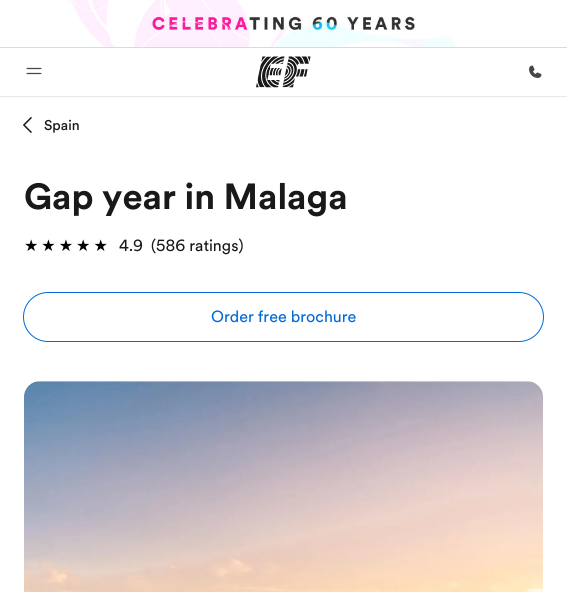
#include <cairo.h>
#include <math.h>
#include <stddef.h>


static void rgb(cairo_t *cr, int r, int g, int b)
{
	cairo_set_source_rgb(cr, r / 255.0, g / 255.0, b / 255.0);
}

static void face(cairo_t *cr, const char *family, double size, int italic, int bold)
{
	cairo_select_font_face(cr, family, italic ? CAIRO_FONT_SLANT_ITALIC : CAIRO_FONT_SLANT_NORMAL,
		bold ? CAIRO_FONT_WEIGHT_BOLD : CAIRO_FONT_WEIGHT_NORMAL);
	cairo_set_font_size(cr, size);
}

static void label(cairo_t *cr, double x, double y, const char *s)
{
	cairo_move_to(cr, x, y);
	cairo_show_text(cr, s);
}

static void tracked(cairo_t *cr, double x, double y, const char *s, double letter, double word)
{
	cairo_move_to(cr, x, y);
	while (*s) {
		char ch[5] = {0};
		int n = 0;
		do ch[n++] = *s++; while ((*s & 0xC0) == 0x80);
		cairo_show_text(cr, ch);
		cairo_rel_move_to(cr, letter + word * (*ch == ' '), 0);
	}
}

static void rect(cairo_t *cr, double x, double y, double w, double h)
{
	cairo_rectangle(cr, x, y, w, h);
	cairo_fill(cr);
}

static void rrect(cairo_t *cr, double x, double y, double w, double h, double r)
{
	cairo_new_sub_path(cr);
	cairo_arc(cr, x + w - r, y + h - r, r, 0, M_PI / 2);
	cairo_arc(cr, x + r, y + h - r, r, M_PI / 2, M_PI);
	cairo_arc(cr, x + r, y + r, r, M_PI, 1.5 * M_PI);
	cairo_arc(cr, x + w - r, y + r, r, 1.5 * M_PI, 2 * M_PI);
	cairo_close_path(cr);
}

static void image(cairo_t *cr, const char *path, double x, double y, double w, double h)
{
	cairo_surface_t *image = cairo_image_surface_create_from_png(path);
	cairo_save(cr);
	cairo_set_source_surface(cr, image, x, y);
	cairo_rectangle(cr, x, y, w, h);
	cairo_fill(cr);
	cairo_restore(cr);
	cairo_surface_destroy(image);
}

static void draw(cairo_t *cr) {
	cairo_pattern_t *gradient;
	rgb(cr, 255, 255, 255);
	cairo_paint(cr);
	rgb(cr, 232, 232, 232);
	rect(cr, 0, 96, 567, 1);
	image(cr, "image0.png", 53, 0, 461, 47);
	rgb(cr, 218, 218, 218);
	rect(cr, 0, 47, 567, 1);
	image(cr, "image1.png", 26, 67, 16, 8);
	image(cr, "image2.png", 256, 56, 55, 32);
	image(cr, "image3.png", 529, 65, 13, 13);
	image(cr, "image4.png", 23, 117, 9, 16);
	face(cr, "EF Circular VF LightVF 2", 14, 0, 0);
	rgb(cr, 25, 25, 25);
	label(cr, 44, 130, "Spain");
	face(cr, "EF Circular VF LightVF", 36, 0, 1);
	label(cr, 24, 209, "Gap year in Malaga");
	face(cr, "DejaVu Sans", 16, 0, 0);
	gradient = cairo_pattern_create_linear(24, 246, 111, 246);
	cairo_pattern_add_color_stop_rgba(gradient, 0.98, 0, 0, 0, 1);
	cairo_pattern_add_color_stop_rgba(gradient, 0.98, 0.784, 0.784, 0.784, 1);
	cairo_set_source(cr, gradient);
	cairo_pattern_destroy(gradient);
	tracked(cr, 24, 251, "★★★★★", 3, 0);
	face(cr, "EF Circular VF LightVF", 16, 0, 0);
	rgb(cr, 25, 25, 25);
	label(cr, 119, 251, "4.9");
	label(cr, 151, 251, "(586 ratings)");
	rrect(cr, 23.5, 292.5, 520, 49, 24.5);
	rgb(cr, 0, 107, 214);
	cairo_set_line_width(cr, 1);
	cairo_stroke(cr);
	label(cr, 211, 322, "Order free brochure");
	image(cr, "image5.png", 24, 381, 519, 211);
}

int main(void) {
	cairo_surface_t *surface = cairo_image_surface_create(CAIRO_FORMAT_RGB24, 567, 592);
	cairo_t *cr = cairo_create(surface);
	cairo_font_options_t *options = cairo_font_options_create();
	cairo_font_options_set_hint_metrics(options, CAIRO_HINT_METRICS_OFF);
	cairo_font_options_set_hint_style(options, CAIRO_HINT_STYLE_NONE);
	cairo_set_font_options(cr, options);
	cairo_set_miter_limit(cr, 4);
	draw(cr);
	cairo_surface_write_to_png(surface, "render.png");
	cairo_font_options_destroy(options);
	cairo_destroy(cr);
	cairo_surface_destroy(surface);
	return 0;
}
